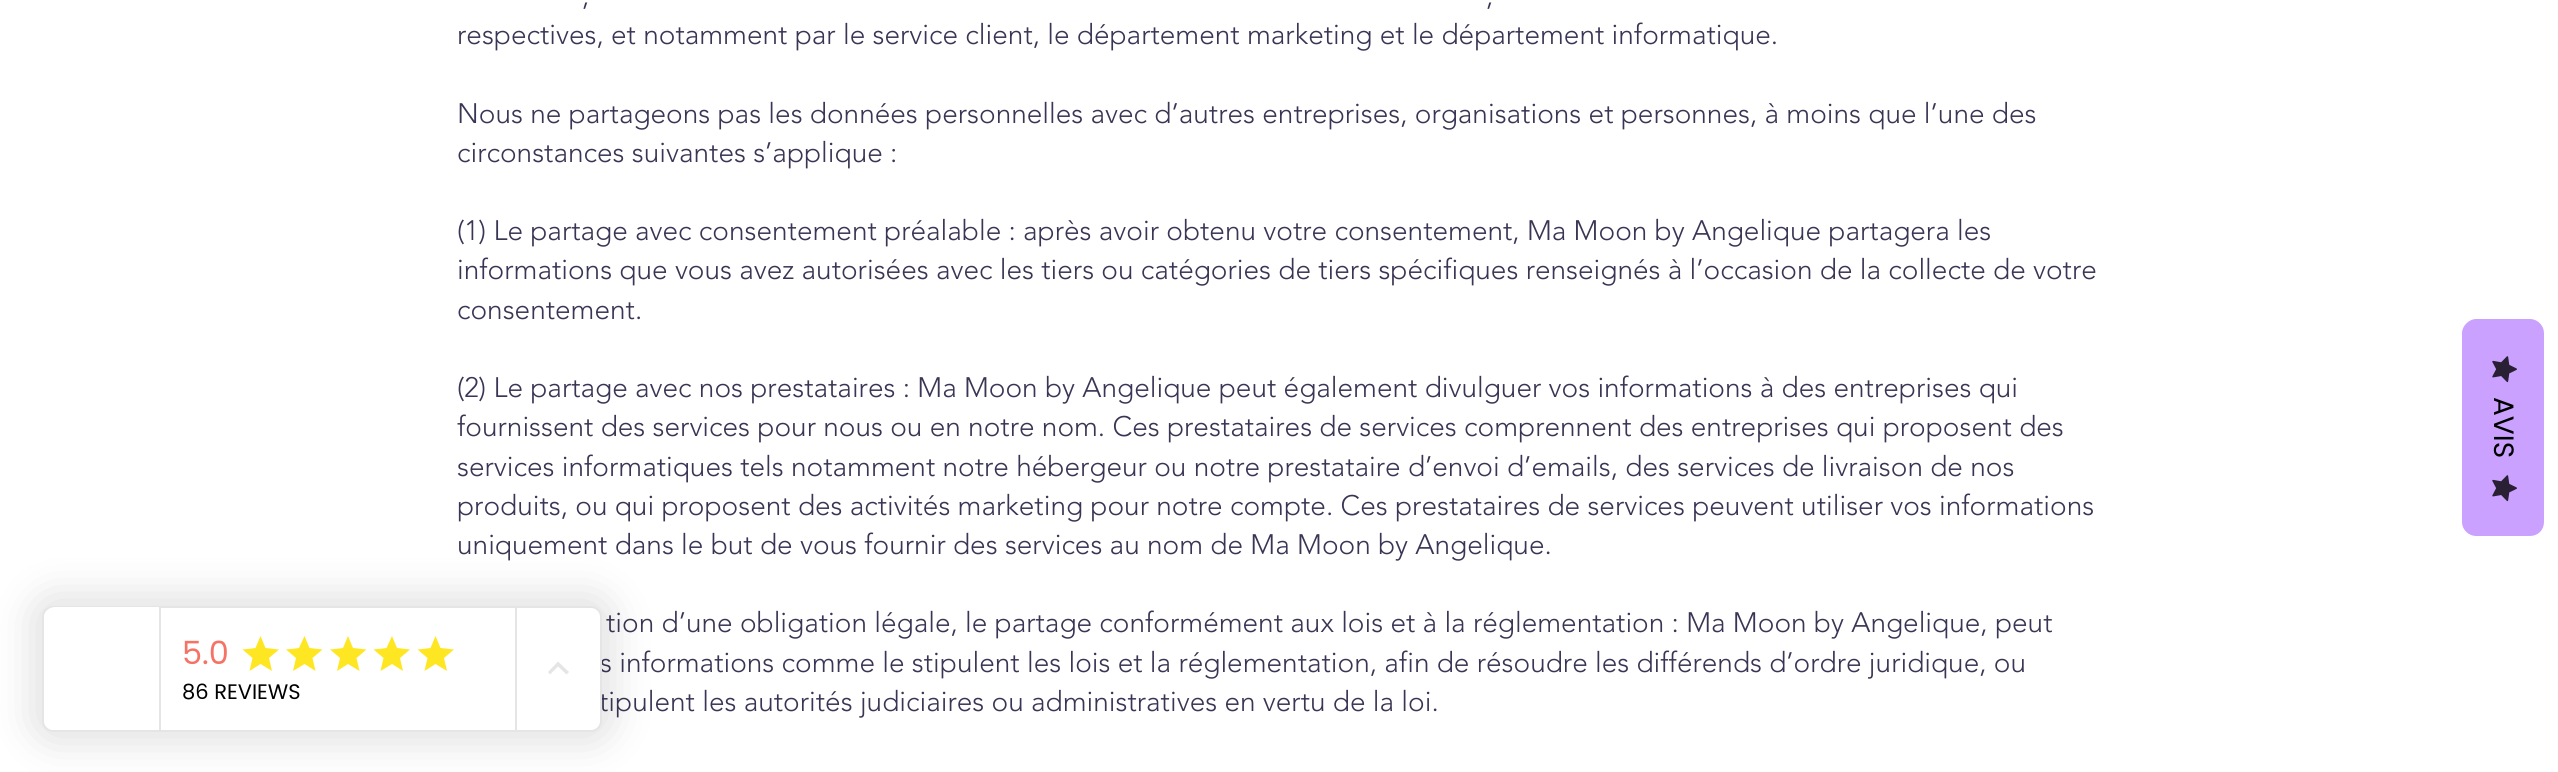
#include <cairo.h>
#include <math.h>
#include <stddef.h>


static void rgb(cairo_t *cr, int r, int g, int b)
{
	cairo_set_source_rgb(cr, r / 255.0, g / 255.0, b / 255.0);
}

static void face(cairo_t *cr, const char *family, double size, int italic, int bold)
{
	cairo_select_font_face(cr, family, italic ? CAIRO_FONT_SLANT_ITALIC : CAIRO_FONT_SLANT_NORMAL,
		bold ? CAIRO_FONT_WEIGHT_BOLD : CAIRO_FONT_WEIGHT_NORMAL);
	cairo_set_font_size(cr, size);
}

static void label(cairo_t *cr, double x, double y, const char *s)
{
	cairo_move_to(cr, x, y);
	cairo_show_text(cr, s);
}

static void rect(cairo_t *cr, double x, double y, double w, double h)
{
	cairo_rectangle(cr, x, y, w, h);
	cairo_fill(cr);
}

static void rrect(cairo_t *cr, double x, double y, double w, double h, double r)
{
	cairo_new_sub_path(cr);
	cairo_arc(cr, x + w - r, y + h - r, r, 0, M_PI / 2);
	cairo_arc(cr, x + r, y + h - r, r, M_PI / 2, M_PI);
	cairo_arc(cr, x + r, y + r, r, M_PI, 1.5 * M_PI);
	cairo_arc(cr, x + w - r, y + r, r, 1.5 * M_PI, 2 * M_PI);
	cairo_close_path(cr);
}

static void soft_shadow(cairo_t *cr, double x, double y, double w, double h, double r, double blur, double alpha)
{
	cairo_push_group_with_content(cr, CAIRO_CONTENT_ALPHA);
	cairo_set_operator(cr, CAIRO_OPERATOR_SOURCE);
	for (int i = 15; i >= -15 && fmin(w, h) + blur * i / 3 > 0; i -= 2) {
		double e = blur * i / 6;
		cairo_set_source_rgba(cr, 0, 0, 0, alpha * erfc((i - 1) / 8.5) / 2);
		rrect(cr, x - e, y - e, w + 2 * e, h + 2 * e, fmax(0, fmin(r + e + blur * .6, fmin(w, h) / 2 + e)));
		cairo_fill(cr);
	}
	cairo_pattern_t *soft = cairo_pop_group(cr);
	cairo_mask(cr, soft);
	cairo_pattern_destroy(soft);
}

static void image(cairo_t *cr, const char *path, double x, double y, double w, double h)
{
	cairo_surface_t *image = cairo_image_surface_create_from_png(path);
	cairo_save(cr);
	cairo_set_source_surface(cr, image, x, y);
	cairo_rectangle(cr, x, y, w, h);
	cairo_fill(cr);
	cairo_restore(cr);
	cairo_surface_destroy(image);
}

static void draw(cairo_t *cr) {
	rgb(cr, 255, 255, 255);
	cairo_paint(cr);
	face(cr, "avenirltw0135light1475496 Light", 28, 0, 0);
	rgb(cr, 57, 53, 84);
	label(cr, 582, 5, ",");
	label(cr, 1486, 5, ",");
	label(cr, 457, 44, "respectives, et notamment par le service client, le département marketing et le département informatique.");
	label(cr, 457, 123, "Nous ne partageons pas les données personnelles avec d’autres entreprises, organisations et personnes, à moins que l’une des");
	label(cr, 457, 162, "circonstances suivantes s’applique :");
	label(cr, 457, 240, "(1) Le partage avec consentement préalable : après avoir obtenu votre consentement, Ma Moon by Angelique partagera les");
	label(cr, 457, 279, "informations que vous avez autorisées avec les tiers ou catégories de tiers spécifiques renseignés à l’occasion de la collecte de votre");
	label(cr, 457, 319, "consentement.");
	label(cr, 457, 397, "(2) Le partage avec nos prestataires : Ma Moon by Angelique peut également divulguer vos informations à des entreprises qui");
	label(cr, 457, 436, "fournissent des services pour nous ou en notre nom. Ces prestataires de services comprennent des entreprises qui proposent des");
	label(cr, 457, 476, "services informatiques tels notamment notre hébergeur ou notre prestataire d’envoi d’emails, des services de livraison de nos");
	label(cr, 457, 515, "produits, ou qui proposent des activités marketing pour notre compte. Ces prestataires de services peuvent utiliser vos informations");
	label(cr, 457, 554, "uniquement dans le but de vous fournir des services au nom de Ma Moon by Angelique.");
	label(cr, 606, 632, "tion d’une obligation légale, le partage conformément aux lois et à la réglementation : Ma Moon by Angelique, peut");
	label(cr, 600, 672, "s informations comme le stipulent les lois et la réglementation, afin de résoudre les différends d’ordre juridique, ou");
	label(cr, 599, 711, "tipulent les autorités judiciaires ou administratives en vertu de la loi.");
	rgb(cr, 203, 161, 255);
	cairo_new_path(cr);
	cairo_move_to(cr, 2544, 333);
	cairo_line_to(cr, 2544, 522);
	cairo_curve_to(cr, 2544, 530, 2538, 536, 2530, 536);
	cairo_line_to(cr, 2476, 536);
	cairo_curve_to(cr, 2469, 536, 2462, 530, 2462, 522);
	cairo_line_to(cr, 2462, 333);
	cairo_curve_to(cr, 2462, 326, 2469, 319, 2476, 319);
	cairo_line_to(cr, 2530, 319);
	cairo_curve_to(cr, 2538, 319, 2544, 326, 2544, 333);
	cairo_close_path(cr);
	cairo_fill(cr);
	image(cr, "image0.png", 2492, 356, 25, 27);
	face(cr, "Poppins", 28, 0, 0);
	rgb(cr, 0, 0, 0);
	cairo_save(cr);
	cairo_translate(cr, 2494, 397);
	cairo_rotate(cr, 90 * M_PI / 180);
	label(cr, 0, 0, "AVIS");
	cairo_restore(cr);
	image(cr, "image0.png", 2492, 475, 25, 27);
	rgb(cr, 0, 0, 0);
	soft_shadow(cr, 32, 595, 581, 147, 21, 21, 0.12);
	rgb(cr, 255, 255, 255);
	rrect(cr, 43, 607, 558, 124, 10);
	cairo_fill_preserve(cr);
	rgb(cr, 229, 229, 229);
	cairo_stroke(cr);
	rgb(cr, 255, 255, 255);
	cairo_new_path(cr);
	cairo_move_to(cr, 55, 607);
	cairo_line_to(cr, 161, 607);
	cairo_line_to(cr, 161, 730);
	cairo_line_to(cr, 55, 730);
	cairo_curve_to(cr, 49, 730, 44, 725, 44, 719);
	cairo_line_to(cr, 44, 618);
	cairo_curve_to(cr, 44, 612, 49, 607, 55, 607);
	cairo_close_path(cr);
	cairo_fill(cr);
	rgb(cr, 229, 229, 229);
	rect(cr, 159, 607, 2, 123);
	rect(cr, 515, 607, 2, 123);
	face(cr, "Poppins", 32, 0, 0);
	rgb(cr, 244, 115, 101);
	label(cr, 182, 664, "5.0");
	rgb(cr, 255, 230, 35);
	cairo_new_path(cr);
	cairo_move_to(cr, 260.5, 664);
	cairo_line_to(cr, 272, 671);
	cairo_line_to(cr, 269, 658);
	cairo_line_to(cr, 279, 649.5);
	cairo_line_to(cr, 265.5, 648);
	cairo_line_to(cr, 260.5, 636);
	cairo_line_to(cr, 255.5, 648);
	cairo_line_to(cr, 242.5, 649.5);
	cairo_line_to(cr, 252.5, 658);
	cairo_line_to(cr, 249.5, 671);
	cairo_close_path(cr);
	cairo_fill(cr);
	cairo_new_path(cr);
	cairo_move_to(cr, 304.5, 664);
	cairo_line_to(cr, 315.5, 671);
	cairo_line_to(cr, 312.5, 658);
	cairo_line_to(cr, 322.5, 649.5);
	cairo_line_to(cr, 309.5, 648);
	cairo_line_to(cr, 304.5, 636);
	cairo_line_to(cr, 299, 648);
	cairo_line_to(cr, 286, 649.5);
	cairo_line_to(cr, 296, 658);
	cairo_line_to(cr, 293, 671);
	cairo_close_path(cr);
	cairo_fill(cr);
	cairo_new_path(cr);
	cairo_move_to(cr, 348, 664);
	cairo_line_to(cr, 359.5, 671);
	cairo_line_to(cr, 356.5, 658);
	cairo_line_to(cr, 366.5, 649.5);
	cairo_line_to(cr, 353, 648);
	cairo_line_to(cr, 348, 636);
	cairo_line_to(cr, 343, 648);
	cairo_line_to(cr, 330, 649.5);
	cairo_line_to(cr, 340, 658);
	cairo_line_to(cr, 337, 671);
	cairo_close_path(cr);
	cairo_fill(cr);
	cairo_new_path(cr);
	cairo_move_to(cr, 392, 664);
	cairo_line_to(cr, 403, 671);
	cairo_line_to(cr, 400, 658);
	cairo_line_to(cr, 410, 649.5);
	cairo_line_to(cr, 397, 648);
	cairo_line_to(cr, 392, 636);
	cairo_line_to(cr, 386.5, 648);
	cairo_line_to(cr, 373.5, 649.5);
	cairo_line_to(cr, 383.5, 658);
	cairo_line_to(cr, 380.5, 671);
	cairo_close_path(cr);
	cairo_fill(cr);
	cairo_new_path(cr);
	cairo_move_to(cr, 435.5, 664);
	cairo_line_to(cr, 447, 671);
	cairo_line_to(cr, 444, 658);
	cairo_line_to(cr, 454, 649.5);
	cairo_line_to(cr, 440.5, 648);
	cairo_line_to(cr, 435.5, 636);
	cairo_line_to(cr, 430.5, 648);
	cairo_line_to(cr, 417.5, 649.5);
	cairo_line_to(cr, 427.5, 658);
	cairo_line_to(cr, 424.5, 671);
	cairo_close_path(cr);
	cairo_fill(cr);
	face(cr, "Poppins", 21, 0, 0);
	rgb(cr, 0, 0, 0);
	label(cr, 182, 699, "86 REVIEWS");
	rgb(cr, 229, 229, 229);
	cairo_new_path(cr);
	cairo_move_to(cr, 550, 674.5);
	cairo_line_to(cr, 558, 666.5);
	cairo_line_to(cr, 566.5, 674.5);
	cairo_line_to(cr, 569, 672);
	cairo_line_to(cr, 558, 661.5);
	cairo_line_to(cr, 548, 672);
	cairo_close_path(cr);
	cairo_fill(cr);
}

int main(void) {
	cairo_surface_t *surface = cairo_image_surface_create(CAIRO_FORMAT_RGB24, 2558, 772);
	cairo_t *cr = cairo_create(surface);
	cairo_font_options_t *options = cairo_font_options_create();
	cairo_font_options_set_hint_metrics(options, CAIRO_HINT_METRICS_OFF);
	cairo_font_options_set_hint_style(options, CAIRO_HINT_STYLE_NONE);
	cairo_set_font_options(cr, options);
	cairo_set_miter_limit(cr, 4);
	draw(cr);
	cairo_surface_write_to_png(surface, "render.png");
	cairo_font_options_destroy(options);
	cairo_destroy(cr);
	cairo_surface_destroy(surface);
	return 0;
}
